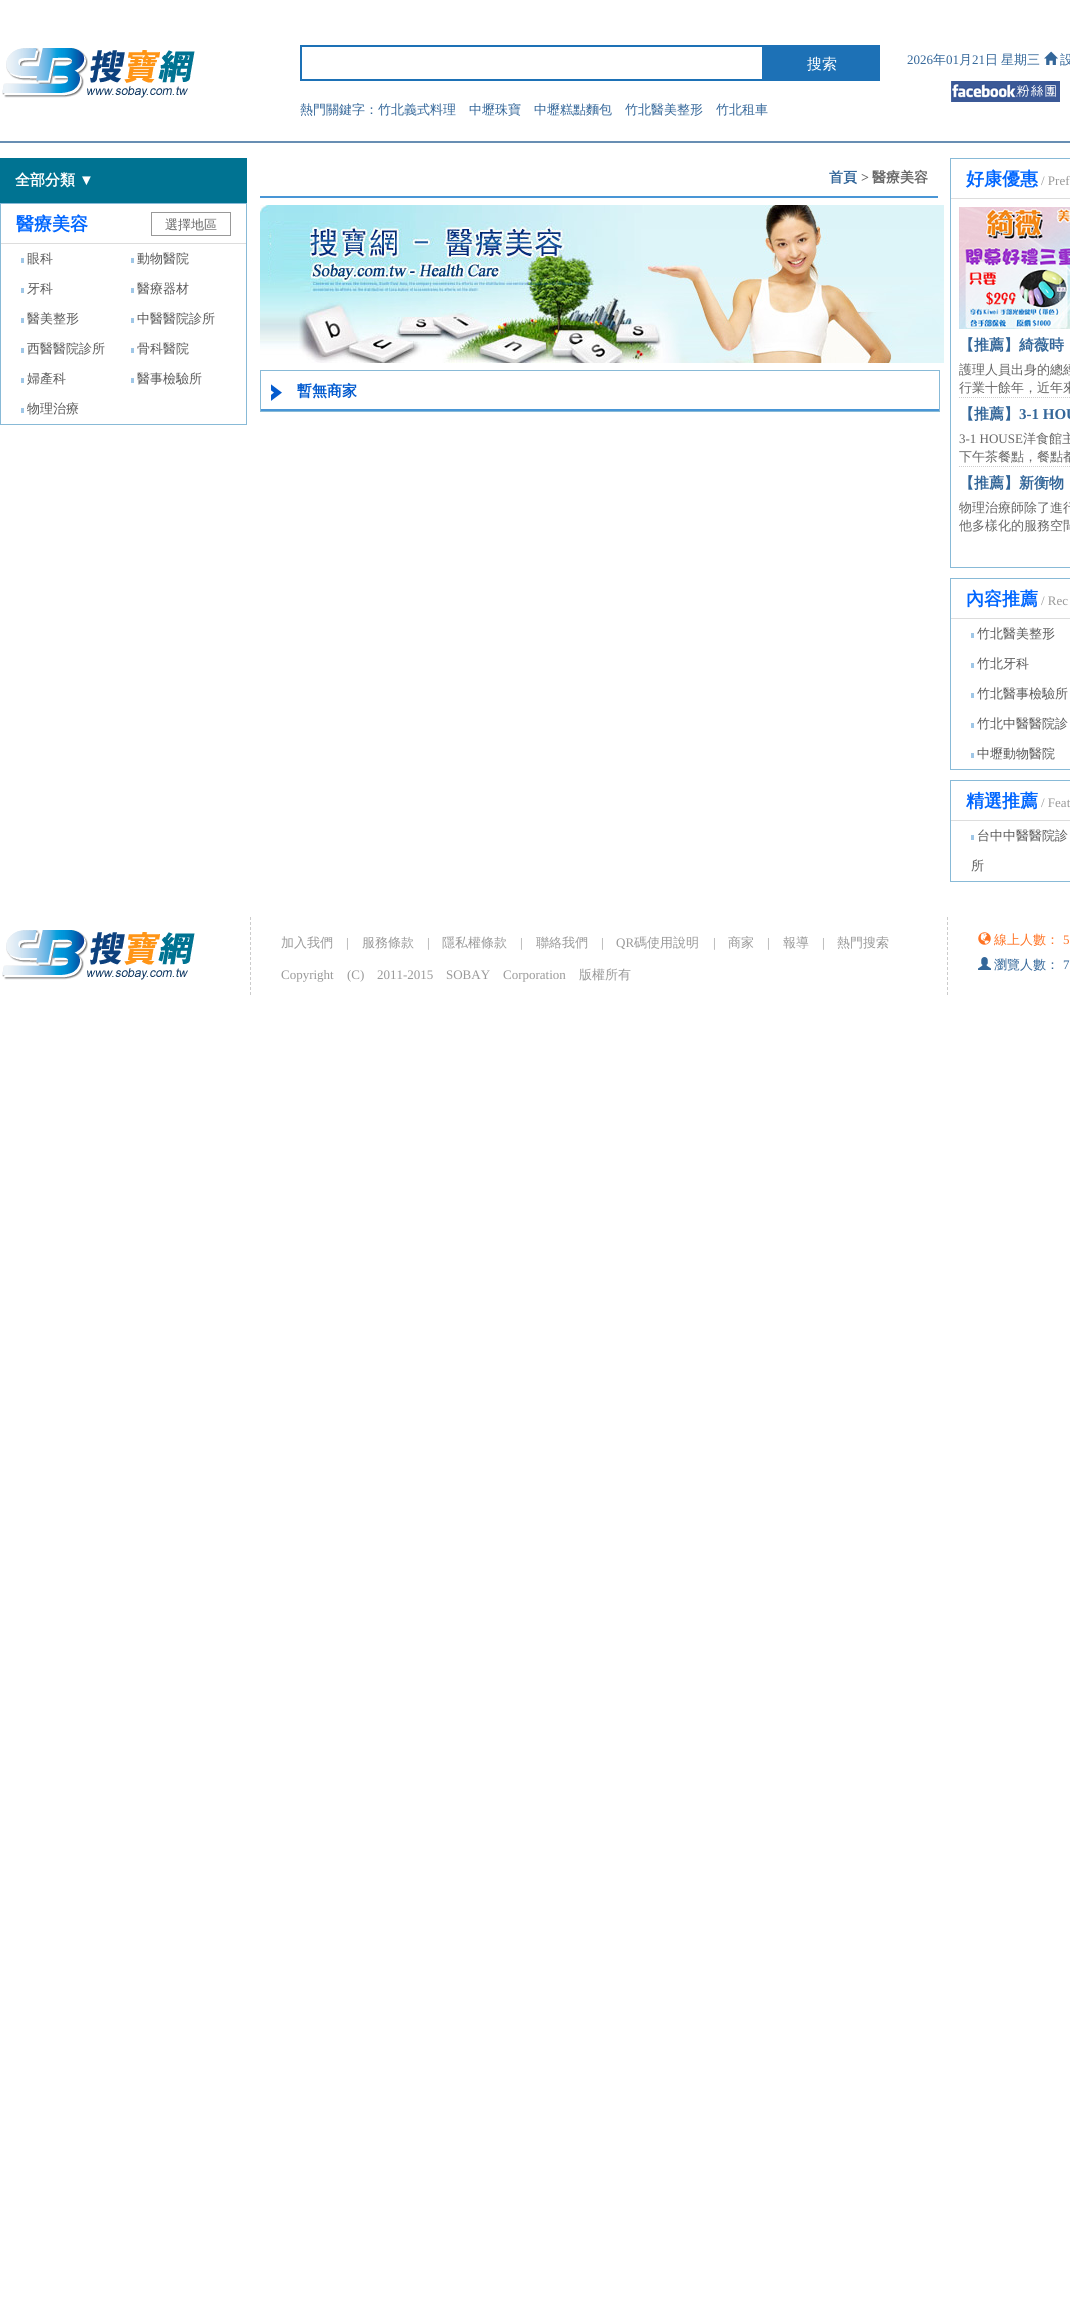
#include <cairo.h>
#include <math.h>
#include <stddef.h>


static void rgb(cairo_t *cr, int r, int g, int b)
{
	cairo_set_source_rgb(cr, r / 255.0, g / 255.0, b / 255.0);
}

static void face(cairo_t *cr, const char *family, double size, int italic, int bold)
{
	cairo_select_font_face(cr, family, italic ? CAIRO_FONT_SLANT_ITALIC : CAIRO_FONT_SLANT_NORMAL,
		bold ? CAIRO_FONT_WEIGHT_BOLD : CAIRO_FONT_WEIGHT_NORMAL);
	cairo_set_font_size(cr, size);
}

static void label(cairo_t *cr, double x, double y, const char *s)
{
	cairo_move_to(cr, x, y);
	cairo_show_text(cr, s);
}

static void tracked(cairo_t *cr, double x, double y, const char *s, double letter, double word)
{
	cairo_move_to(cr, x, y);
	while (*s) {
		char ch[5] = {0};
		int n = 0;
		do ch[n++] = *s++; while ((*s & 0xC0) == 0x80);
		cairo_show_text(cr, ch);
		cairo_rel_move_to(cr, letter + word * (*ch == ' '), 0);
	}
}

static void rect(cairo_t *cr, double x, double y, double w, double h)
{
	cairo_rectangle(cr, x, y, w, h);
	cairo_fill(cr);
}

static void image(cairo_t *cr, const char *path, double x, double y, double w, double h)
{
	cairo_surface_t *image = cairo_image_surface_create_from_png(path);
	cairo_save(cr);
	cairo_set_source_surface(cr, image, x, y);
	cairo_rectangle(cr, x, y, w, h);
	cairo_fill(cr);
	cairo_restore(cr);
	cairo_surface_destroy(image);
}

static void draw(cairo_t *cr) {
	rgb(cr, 255, 255, 255);
	cairo_paint(cr);
	rgb(cr, 104, 142, 179);
	rect(cr, 0, 141, 1070, 2);
	image(cr, "image0.png", 2, 48, 193, 50);
	cairo_rectangle(cr, 301, 46, 462, 34);
	rgb(cr, 29, 113, 182);
	cairo_stroke(cr);
	rect(cr, 764, 45, 116, 36);
	face(cr, "WenQuanYi Zen Hei Medium", 15, 0, 0);
	rgb(cr, 255, 255, 255);
	label(cr, 807, 69, "搜索");
	face(cr, "WenQuanYi Zen Hei Medium", 13, 0, 0);
	rgb(cr, 51, 102, 153);
	label(cr, 300, 114, "熱門關鍵字：竹北義式料理");
	label(cr, 469, 114, "中壢珠寶");
	label(cr, 534, 114, "中壢糕點麵包");
	label(cr, 625, 114, "竹北醫美整形");
	label(cr, 716, 114, "竹北租車");
	face(cr, "Liberation Serif", 13, 0, 0);
	label(cr, 907, 64, "2026");
	face(cr, "WenQuanYi Zen Hei Medium", 13, 0, 0);
	label(cr, 933, 64, "年");
	face(cr, "Liberation Serif", 13, 0, 0);
	label(cr, 946, 64, "01");
	face(cr, "WenQuanYi Zen Hei Medium", 13, 0, 0);
	label(cr, 959, 64, "月");
	face(cr, "Liberation Serif", 13, 0, 0);
	label(cr, 972, 64, "21");
	face(cr, "WenQuanYi Zen Hei Medium", 13, 0, 0);
	tracked(cr, 985, 64, "日 星期三", 0, -1);
	image(cr, "image1.png", 1044, 51, 14, 14);
	label(cr, 1060, 64, "設");
	image(cr, "image2.png", 951, 81, 109, 21);
	rgb(cr, 0, 115, 146);
	rect(cr, 0, 158, 247, 45);
	face(cr, "WenQuanYi Zen Hei", 15, 0, 1);
	rgb(cr, 255, 255, 255);
	label(cr, 15, 185, "全部分類");
	face(cr, "Liberation Serif", 15, 0, 1);
	label(cr, 79, 185, "▼");
	cairo_rectangle(cr, 0.5, 203.5, 246, 221);
	rgb(cr, 136, 186, 215);
	cairo_set_line_width(cr, 1);
	cairo_stroke(cr);
	rgb(cr, 221, 221, 221);
	rect(cr, 1, 243, 245, 1);
	face(cr, "WenQuanYi Zen Hei", 18, 0, 1);
	rgb(cr, 0, 102, 255);
	label(cr, 16, 230, "醫療美容");
	cairo_rectangle(cr, 151.5, 212.5, 79, 23);
	rgb(cr, 153, 153, 153);
	cairo_stroke(cr);
	face(cr, "WenQuanYi Zen Hei Medium", 13, 0, 0);
	rgb(cr, 102, 102, 102);
	label(cr, 165, 229, "選擇地區");
	rgb(cr, 159, 198, 230);
	rect(cr, 21, 258, 3, 5);
	rgb(cr, 89, 89, 89);
	label(cr, 27, 263, "眼科");
	rgb(cr, 159, 198, 230);
	rect(cr, 131, 258, 3, 5);
	rgb(cr, 89, 89, 89);
	label(cr, 137, 263, "動物醫院");
	rgb(cr, 159, 198, 230);
	rect(cr, 21, 288, 3, 5);
	rgb(cr, 89, 89, 89);
	label(cr, 27, 293, "牙科");
	rgb(cr, 159, 198, 230);
	rect(cr, 131, 288, 3, 5);
	rgb(cr, 89, 89, 89);
	label(cr, 137, 293, "醫療器材");
	rgb(cr, 159, 198, 230);
	rect(cr, 21, 318, 3, 5);
	rgb(cr, 89, 89, 89);
	label(cr, 27, 323, "醫美整形");
	rgb(cr, 159, 198, 230);
	rect(cr, 131, 318, 3, 5);
	rgb(cr, 89, 89, 89);
	label(cr, 137, 323, "中醫醫院診所");
	rgb(cr, 159, 198, 230);
	rect(cr, 21, 348, 3, 5);
	rgb(cr, 89, 89, 89);
	label(cr, 27, 353, "西醫醫院診所");
	rgb(cr, 159, 198, 230);
	rect(cr, 131, 348, 3, 5);
	rgb(cr, 89, 89, 89);
	label(cr, 137, 353, "骨科醫院");
	rgb(cr, 159, 198, 230);
	rect(cr, 21, 378, 3, 5);
	rgb(cr, 89, 89, 89);
	label(cr, 27, 383, "婦產科");
	rgb(cr, 159, 198, 230);
	rect(cr, 131, 378, 3, 5);
	rgb(cr, 89, 89, 89);
	label(cr, 137, 383, "醫事檢驗所");
	rgb(cr, 159, 198, 230);
	rect(cr, 21, 408, 3, 5);
	rgb(cr, 89, 89, 89);
	label(cr, 27, 413, "物理治療");
	rgb(cr, 73, 150, 214);
	rect(cr, 260, 196, 678, 2);
	face(cr, "WenQuanYi Zen Hei", 14, 0, 1);
	rgb(cr, 51, 102, 153);
	label(cr, 829, 182, "首頁");
	face(cr, "Liberation Serif", 14, 0, 1);
	rgb(cr, 102, 102, 102);
	label(cr, 861, 182, ">");
	face(cr, "WenQuanYi Zen Hei", 14, 0, 1);
	label(cr, 872, 182, "醫療美容");
	image(cr, "image3.png", 260, 205, 684, 158);
	cairo_rectangle(cr, 260.5, 370.5, 679, 41);
	rgb(cr, 136, 186, 215);
	cairo_stroke(cr);
	rgb(cr, 73, 150, 214);
	rect(cr, 261, 409, 678, 2);
	image(cr, "image4.png", 271, 384, 11, 17);
	face(cr, "WenQuanYi Zen Hei", 15, 0, 1);
	rgb(cr, 0, 89, 206);
	label(cr, 297, 396, "暫無商家");
	cairo_rectangle(cr, 950.5, 158.5, 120, 409);
	rgb(cr, 136, 186, 215);
	cairo_stroke(cr);
	rgb(cr, 221, 221, 221);
	rect(cr, 951, 198, 119, 1);
	face(cr, "WenQuanYi Zen Hei", 18, 0, 1);
	rgb(cr, 0, 102, 255);
	label(cr, 966, 185, "好康優惠");
	face(cr, "Liberation Serif", 13, 0, 0);
	rgb(cr, 153, 153, 153);
	label(cr, 1041, 185, "/ Pref");
	image(cr, "image5.png", 959, 207, 111, 122);
	cairo_new_path(cr);
	cairo_move_to(cr, 959, 397.5);
	cairo_line_to(cr, 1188, 397.5);
	rgb(cr, 204, 204, 204);
	cairo_set_dash(cr, (double[]){1, 1}, 2, 0);
	cairo_stroke(cr);
	face(cr, "WenQuanYi Zen Hei", 15, 0, 1);
	rgb(cr, 51, 102, 153);
	label(cr, 959, 350, "【推薦】綺薇時");
	face(cr, "WenQuanYi Zen Hei Medium", 13, 0, 0);
	rgb(cr, 102, 102, 102);
	label(cr, 959, 374, "護理人員出身的總經");
	label(cr, 959, 392, "行業十餘年，近年來");
	cairo_new_path(cr);
	cairo_move_to(cr, 959, 466.5);
	cairo_line_to(cr, 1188, 466.5);
	rgb(cr, 204, 204, 204);
	cairo_stroke(cr);
	face(cr, "WenQuanYi Zen Hei", 15, 0, 1);
	rgb(cr, 51, 102, 153);
	label(cr, 959, 419, "【推薦】");
	face(cr, "Liberation Serif", 15, 0, 1);
	label(cr, 1019, 419, "3-1 HOU");
	face(cr, "Liberation Serif", 13, 0, 0);
	rgb(cr, 102, 102, 102);
	label(cr, 959, 443, "3-1 HOUSE");
	face(cr, "WenQuanYi Zen Hei Medium", 13, 0, 0);
	label(cr, 1023, 443, "洋食館主");
	label(cr, 959, 461, "下午茶餐點，餐點都");
	face(cr, "WenQuanYi Zen Hei", 15, 0, 1);
	rgb(cr, 51, 102, 153);
	label(cr, 959, 488, "【推薦】新衡物");
	face(cr, "WenQuanYi Zen Hei Medium", 13, 0, 0);
	rgb(cr, 102, 102, 102);
	label(cr, 959, 512, "物理治療師除了進行");
	label(cr, 959, 530, "他多樣化的服務空間");
	cairo_rectangle(cr, 950.5, 578.5, 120, 191);
	rgb(cr, 136, 186, 215);
	cairo_set_dash(cr, NULL, 0, 0);
	cairo_stroke(cr);
	rgb(cr, 221, 221, 221);
	rect(cr, 951, 618, 119, 1);
	face(cr, "WenQuanYi Zen Hei", 18, 0, 1);
	rgb(cr, 0, 102, 255);
	label(cr, 966, 605, "內容推薦");
	face(cr, "Liberation Serif", 13, 0, 0);
	rgb(cr, 153, 153, 153);
	label(cr, 1041, 605, "/ Rec");
	rgb(cr, 159, 198, 230);
	rect(cr, 971, 633, 3, 5);
	face(cr, "WenQuanYi Zen Hei Medium", 13, 0, 0);
	rgb(cr, 89, 89, 89);
	label(cr, 977, 638, "竹北醫美整形");
	rgb(cr, 159, 198, 230);
	rect(cr, 971, 663, 3, 5);
	rgb(cr, 89, 89, 89);
	label(cr, 977, 668, "竹北牙科");
	rgb(cr, 159, 198, 230);
	rect(cr, 971, 693, 3, 5);
	rgb(cr, 89, 89, 89);
	label(cr, 977, 698, "竹北醫事檢驗所");
	rgb(cr, 159, 198, 230);
	rect(cr, 971, 723, 3, 5);
	rgb(cr, 89, 89, 89);
	label(cr, 977, 728, "竹北中醫醫院診");
	rgb(cr, 159, 198, 230);
	rect(cr, 971, 753, 3, 5);
	rgb(cr, 89, 89, 89);
	label(cr, 977, 758, "中壢動物醫院");
	cairo_rectangle(cr, 950.5, 780.5, 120, 101);
	rgb(cr, 136, 186, 215);
	cairo_stroke(cr);
	rgb(cr, 221, 221, 221);
	rect(cr, 951, 820, 119, 1);
	face(cr, "WenQuanYi Zen Hei", 18, 0, 1);
	rgb(cr, 0, 102, 255);
	label(cr, 966, 807, "精選推薦");
	face(cr, "Liberation Serif", 13, 0, 0);
	rgb(cr, 153, 153, 153);
	label(cr, 1041, 807, "/ Feat");
	rgb(cr, 159, 198, 230);
	rect(cr, 971, 835, 3, 5);
	face(cr, "WenQuanYi Zen Hei Medium", 13, 0, 0);
	rgb(cr, 89, 89, 89);
	label(cr, 977, 840, "台中中醫醫院診");
	label(cr, 971, 870, "所");
	image(cr, "image0.png", 2, 930, 193, 50);
	cairo_new_path(cr);
	cairo_move_to(cr, 947.5, 917);
	cairo_line_to(cr, 947.5, 995);
	rgb(cr, 204, 204, 204);
	cairo_set_dash(cr, (double[]){3, 2}, 2, 0);
	cairo_stroke(cr);
	cairo_new_path(cr);
	cairo_move_to(cr, 250.5, 917);
	cairo_line_to(cr, 250.5, 995);
	cairo_stroke(cr);
	rgb(cr, 153, 153, 153);
	label(cr, 281, 947, "加入我們");
	face(cr, "Liberation Serif", 13, 0, 0);
	label(cr, 346, 947, "|");
	face(cr, "WenQuanYi Zen Hei Medium", 13, 0, 0);
	label(cr, 362, 947, "服務條款");
	face(cr, "Liberation Serif", 13, 0, 0);
	label(cr, 427, 947, "|");
	face(cr, "WenQuanYi Zen Hei Medium", 13, 0, 0);
	label(cr, 442, 947, "隱私權條款");
	face(cr, "Liberation Serif", 13, 0, 0);
	label(cr, 520, 947, "|");
	face(cr, "WenQuanYi Zen Hei Medium", 13, 0, 0);
	label(cr, 536, 947, "聯絡我們");
	face(cr, "Liberation Serif", 13, 0, 0);
	label(cr, 601, 947, "|");
	label(cr, 616, 947, "QR");
	face(cr, "WenQuanYi Zen Hei Medium", 13, 0, 0);
	label(cr, 634, 947, "碼使用說明");
	face(cr, "Liberation Serif", 13, 0, 0);
	label(cr, 713, 947, "|");
	face(cr, "WenQuanYi Zen Hei Medium", 13, 0, 0);
	label(cr, 728, 947, "商家");
	face(cr, "Liberation Serif", 13, 0, 0);
	label(cr, 767, 947, "|");
	face(cr, "WenQuanYi Zen Hei Medium", 13, 0, 0);
	label(cr, 783, 947, "報導");
	face(cr, "Liberation Serif", 13, 0, 0);
	label(cr, 822, 947, "|");
	face(cr, "WenQuanYi Zen Hei Medium", 13, 0, 0);
	label(cr, 837, 947, "熱門搜索");
	face(cr, "Liberation Serif", 13, 0, 0);
	label(cr, 281, 979, "Copyright");
	label(cr, 347, 979, "(C)");
	label(cr, 377, 979, "2011-2015");
	label(cr, 446, 979, "SOBAY");
	label(cr, 503, 979, "Corporation");
	face(cr, "WenQuanYi Zen Hei Medium", 13, 0, 0);
	label(cr, 579, 979, "版權所有");
	image(cr, "image6.png", 978, 932, 13, 13);
	rgb(cr, 255, 115, 36);
	label(cr, 994, 944, "線上人數：");
	face(cr, "Liberation Serif", 13, 0, 0);
	label(cr, 1063, 944, "5");
	image(cr, "image7.png", 978, 957, 13, 13);
	face(cr, "WenQuanYi Zen Hei Medium", 13, 0, 0);
	rgb(cr, 51, 102, 153);
	label(cr, 994, 969, "瀏覽人數：");
	face(cr, "Liberation Serif", 13, 0, 0);
	label(cr, 1063, 969, "7");
}

int main(void) {
	cairo_surface_t *surface = cairo_image_surface_create(CAIRO_FORMAT_RGB24, 1070, 2322);
	cairo_t *cr = cairo_create(surface);
	cairo_font_options_t *options = cairo_font_options_create();
	cairo_font_options_set_hint_metrics(options, CAIRO_HINT_METRICS_OFF);
	cairo_font_options_set_hint_style(options, CAIRO_HINT_STYLE_NONE);
	cairo_set_font_options(cr, options);
	cairo_set_miter_limit(cr, 4);
	draw(cr);
	cairo_surface_write_to_png(surface, "render.png");
	cairo_font_options_destroy(options);
	cairo_destroy(cr);
	cairo_surface_destroy(surface);
	return 0;
}
